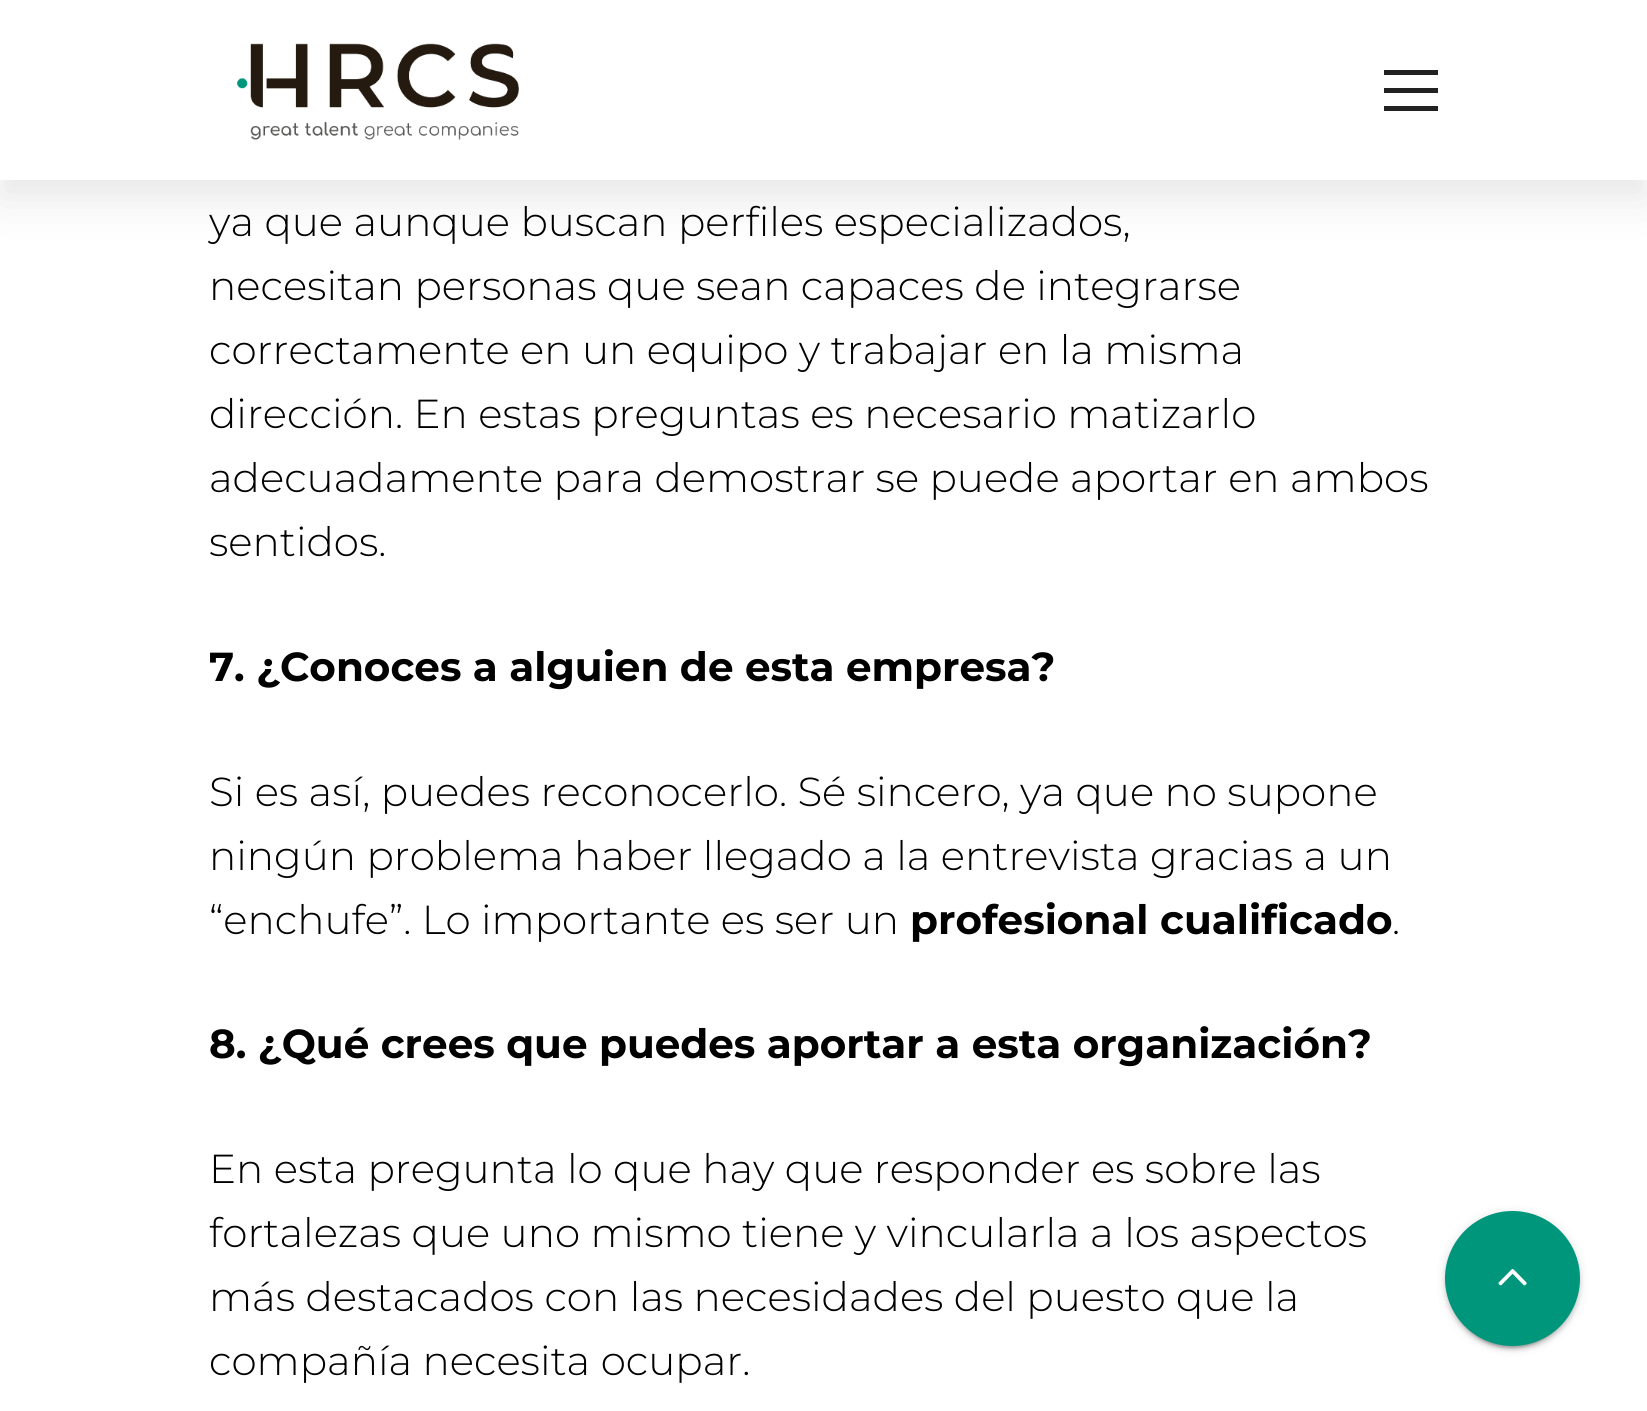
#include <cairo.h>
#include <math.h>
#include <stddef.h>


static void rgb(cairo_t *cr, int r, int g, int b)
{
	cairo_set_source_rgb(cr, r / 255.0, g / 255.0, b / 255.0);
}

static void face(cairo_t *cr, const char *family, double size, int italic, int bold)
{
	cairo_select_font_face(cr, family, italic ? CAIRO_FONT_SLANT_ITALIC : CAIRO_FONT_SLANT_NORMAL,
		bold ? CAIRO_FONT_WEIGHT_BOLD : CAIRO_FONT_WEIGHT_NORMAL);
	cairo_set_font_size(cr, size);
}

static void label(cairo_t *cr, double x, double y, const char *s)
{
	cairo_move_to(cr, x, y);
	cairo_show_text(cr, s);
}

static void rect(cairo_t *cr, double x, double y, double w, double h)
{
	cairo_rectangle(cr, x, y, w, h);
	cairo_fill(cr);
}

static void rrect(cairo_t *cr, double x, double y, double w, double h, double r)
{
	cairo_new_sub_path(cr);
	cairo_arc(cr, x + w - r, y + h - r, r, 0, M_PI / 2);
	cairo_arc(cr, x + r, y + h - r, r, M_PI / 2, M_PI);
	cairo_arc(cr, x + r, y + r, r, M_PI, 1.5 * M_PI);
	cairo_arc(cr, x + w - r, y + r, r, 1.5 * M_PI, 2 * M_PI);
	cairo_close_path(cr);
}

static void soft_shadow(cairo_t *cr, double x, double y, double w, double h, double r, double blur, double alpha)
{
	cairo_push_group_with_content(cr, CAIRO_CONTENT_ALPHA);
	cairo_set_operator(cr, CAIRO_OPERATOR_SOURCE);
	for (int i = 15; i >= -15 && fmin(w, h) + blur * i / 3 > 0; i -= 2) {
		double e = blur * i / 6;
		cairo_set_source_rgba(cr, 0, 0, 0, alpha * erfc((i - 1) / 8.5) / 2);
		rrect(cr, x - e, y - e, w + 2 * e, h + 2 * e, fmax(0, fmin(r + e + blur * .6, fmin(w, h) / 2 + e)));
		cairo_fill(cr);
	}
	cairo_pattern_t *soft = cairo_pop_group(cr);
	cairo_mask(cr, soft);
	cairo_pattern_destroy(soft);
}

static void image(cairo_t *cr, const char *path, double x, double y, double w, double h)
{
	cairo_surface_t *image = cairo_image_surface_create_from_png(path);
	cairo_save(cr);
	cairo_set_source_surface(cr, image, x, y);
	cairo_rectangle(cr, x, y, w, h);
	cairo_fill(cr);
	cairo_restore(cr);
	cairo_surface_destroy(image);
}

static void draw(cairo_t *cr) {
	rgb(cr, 255, 255, 255);
	cairo_paint(cr);
	rgb(cr, 0, 0, 0);
	soft_shadow(cr, 0, 18, 1647, 180, 0, 22.5, 0.1);
	rgb(cr, 255, 255, 255);
	rect(cr, 0, 0, 1647, 180);
	image(cr, "image0.png", 237, 43, 282, 97);
	rgb(cr, 34, 34, 34);
	rect(cr, 1384, 88, 54, 5);
	rect(cr, 1384, 70, 54, 5);
	rect(cr, 1384, 106, 54, 5);
	face(cr, "Montserrat Light", 40.5, 0, 0);
	rgb(cr, 0, 0, 0);
	label(cr, 209, 236, "ya que aunque buscan perfiles especializados,");
	label(cr, 209, 300, "necesitan personas que sean capaces de integrarse");
	label(cr, 209, 364, "correctamente en un equipo y trabajar en la misma");
	label(cr, 209, 428, "dirección. En estas preguntas es necesario matizarlo");
	label(cr, 209, 492, "adecuadamente para demostrar se puede aportar en ambos");
	label(cr, 209, 556, "sentidos.");
	face(cr, "Montserrat", 40.5, 0, 1);
	label(cr, 209, 681, "7. ¿Conoces a alguien de esta empresa?");
	face(cr, "Montserrat Light", 40.5, 0, 0);
	label(cr, 209, 806, "Si es así, puedes reconocerlo. Sé sincero, ya que no supone");
	label(cr, 209, 870, "ningún problema haber llegado a la entrevista gracias a un");
	label(cr, 209, 934, "“enchufe”. Lo importante es ser un");
	face(cr, "Montserrat", 40.5, 0, 1);
	label(cr, 910, 934, "profesional cualificado");
	face(cr, "Montserrat Light", 40.5, 0, 0);
	label(cr, 1392, 934, ".");
	face(cr, "Montserrat", 40.5, 0, 1);
	label(cr, 209, 1058, "8. ¿Qué crees que puedes aportar a esta organización?");
	face(cr, "Montserrat Light", 40.5, 0, 0);
	label(cr, 209, 1183, "En esta pregunta lo que hay que responder es sobre las");
	label(cr, 209, 1247, "fortalezas que uno mismo tiene y vincularla a los aspectos");
	label(cr, 209, 1311, "más destacados con las necesidades del puesto que la");
	label(cr, 209, 1375, "compañía necesita ocupar.");
	rgb(cr, 0, 0, 0);
	soft_shadow(cr, 1449, 1222, 126, 126, 63, 1, 0.2);
	soft_shadow(cr, 1445, 1213, 135, 135, 67.5, 5.5, 0.12);
	soft_shadow(cr, 1445, 1215, 135, 135, 67.5, 2, 0.14);
	rgb(cr, 0, 150, 124);
	cairo_arc(cr, 1512.5, 1278.5, 67.5, 0, 2 * M_PI);
	cairo_fill(cr);
	image(cr, "image1.png", 1498, 1269, 29, 17);
}

int main(void) {
	cairo_surface_t *surface = cairo_image_surface_create(CAIRO_FORMAT_RGB24, 1647, 1411);
	cairo_t *cr = cairo_create(surface);
	cairo_font_options_t *options = cairo_font_options_create();
	cairo_font_options_set_hint_metrics(options, CAIRO_HINT_METRICS_OFF);
	cairo_font_options_set_hint_style(options, CAIRO_HINT_STYLE_NONE);
	cairo_set_font_options(cr, options);
	cairo_set_miter_limit(cr, 4);
	draw(cr);
	cairo_surface_write_to_png(surface, "render.png");
	cairo_font_options_destroy(options);
	cairo_destroy(cr);
	cairo_surface_destroy(surface);
	return 0;
}
